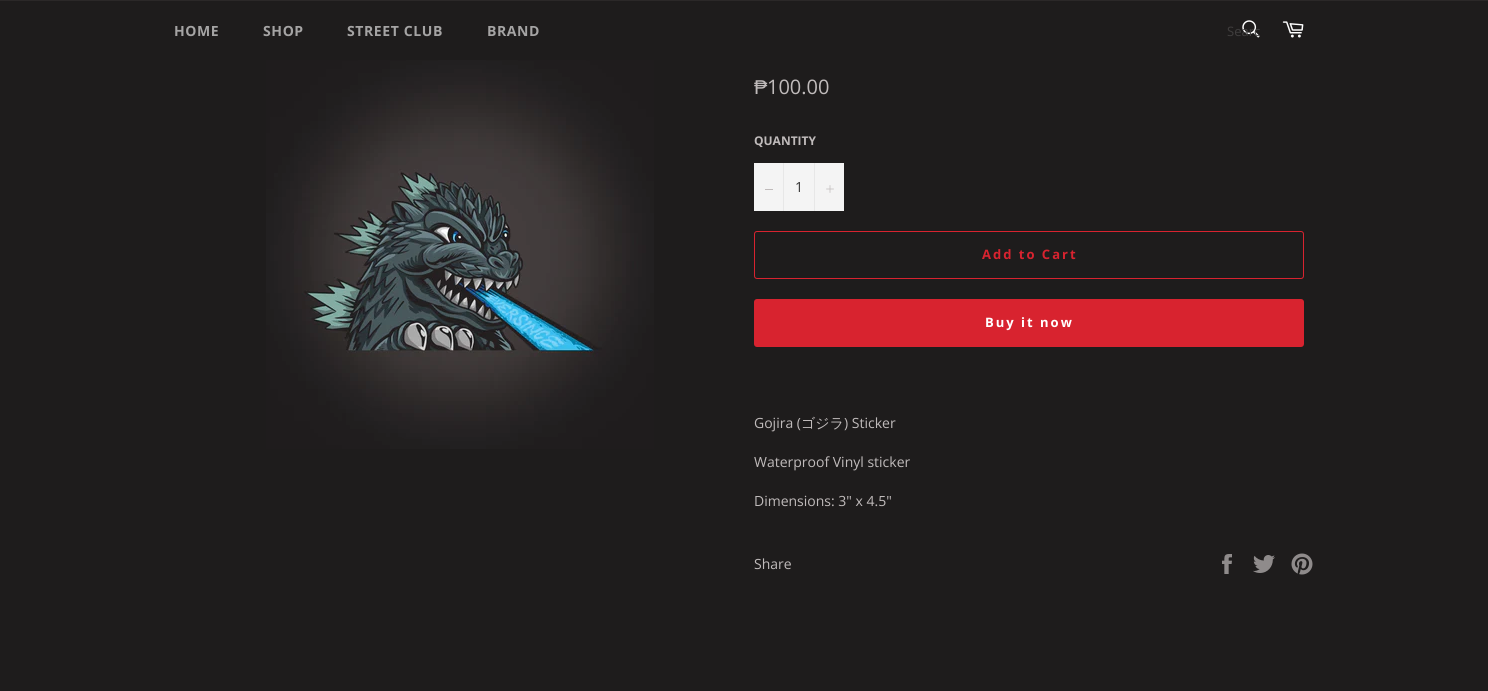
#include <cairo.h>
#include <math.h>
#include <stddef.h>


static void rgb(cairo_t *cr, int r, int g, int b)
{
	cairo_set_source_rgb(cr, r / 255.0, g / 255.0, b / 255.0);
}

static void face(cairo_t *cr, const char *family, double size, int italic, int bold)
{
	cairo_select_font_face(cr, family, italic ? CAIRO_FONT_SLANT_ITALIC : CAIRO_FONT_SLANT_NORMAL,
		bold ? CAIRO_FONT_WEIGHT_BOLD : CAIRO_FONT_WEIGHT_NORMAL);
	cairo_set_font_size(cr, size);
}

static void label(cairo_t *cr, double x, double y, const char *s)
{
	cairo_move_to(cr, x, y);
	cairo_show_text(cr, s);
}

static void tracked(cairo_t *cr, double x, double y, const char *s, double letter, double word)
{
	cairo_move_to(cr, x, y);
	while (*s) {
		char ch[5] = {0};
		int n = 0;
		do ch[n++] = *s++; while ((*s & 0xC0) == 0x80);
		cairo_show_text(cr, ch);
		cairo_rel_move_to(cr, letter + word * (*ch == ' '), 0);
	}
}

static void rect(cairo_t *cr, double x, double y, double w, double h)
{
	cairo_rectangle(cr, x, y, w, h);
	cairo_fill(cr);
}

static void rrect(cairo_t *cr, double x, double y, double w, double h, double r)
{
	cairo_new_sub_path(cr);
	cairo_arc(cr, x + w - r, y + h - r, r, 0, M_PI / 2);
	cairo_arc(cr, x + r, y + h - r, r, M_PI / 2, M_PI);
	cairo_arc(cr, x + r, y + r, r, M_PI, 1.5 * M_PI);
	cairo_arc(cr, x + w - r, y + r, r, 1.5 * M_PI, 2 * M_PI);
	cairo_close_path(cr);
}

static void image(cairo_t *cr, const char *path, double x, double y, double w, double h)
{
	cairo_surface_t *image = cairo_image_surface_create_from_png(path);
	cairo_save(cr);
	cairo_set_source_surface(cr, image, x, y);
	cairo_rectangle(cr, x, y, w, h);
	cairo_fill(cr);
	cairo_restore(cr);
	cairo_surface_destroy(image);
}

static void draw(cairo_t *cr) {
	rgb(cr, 30, 28, 28);
	cairo_paint(cr);
	rgb(cr, 43, 40, 40);
	rect(cr, 0, 0, 1488, 1);
	face(cr, "Open Sans", 14, 0, 1);
	rgb(cr, 165, 164, 164);
	tracked(cr, 174, 36, "HOME", 0.6, 0);
	tracked(cr, 263, 36, "SHOP", 0.6, 0);
	tracked(cr, 347, 36, "STREET CLUB", 0.6, 0);
	tracked(cr, 487, 36, "BRAND", 0.6, 0);
	image(cr, "image0.png", 1242, 20, 18, 18);
	face(cr, "Open Sans", 13, 0, 0);
	rgb(cr, 64, 62, 62);
	label(cr, 1227, 36, "Searc");
	image(cr, "image1.png", 1282, 21, 22, 17);
	image(cr, "image2.png", 266, 60, 388, 389);
	face(cr, "Liberation Sans", 20, 0, 0);
	rgb(cr, 192, 187, 187);
	label(cr, 754, 94, "₱");
	face(cr, "Open Sans", 20, 0, 0);
	label(cr, 767, 94, "100.00");
	face(cr, "Open Sans", 12, 0, 1);
	label(cr, 754, 145, "QUANTITY");
	rgb(cr, 244, 244, 244);
	rect(cr, 754, 163, 90, 48);
	rgb(cr, 231, 231, 231);
	rect(cr, 783, 163, 1, 48);
	rgb(cr, 192, 187, 187);
	rect(cr, 765, 189, 8, 1);
	face(cr, "Open Sans", 14, 0, 0);
	rgb(cr, 51, 51, 51);
	label(cr, 795, 192, "1");
	rgb(cr, 231, 231, 231);
	rect(cr, 814, 163, 1, 48);
	image(cr, "image3.png", 826, 185, 8, 8);
	rrect(cr, 754.5, 231.5, 549, 47, 2.5);
	rgb(cr, 216, 35, 47);
	cairo_set_line_width(cr, 1);
	cairo_stroke(cr);
	face(cr, "Open Sans", 13, 0, 1);
	tracked(cr, 982, 259, "Add to Cart", 2, 0);
	rrect(cr, 754, 299, 550, 48, 3);
	cairo_fill(cr);
	rgb(cr, 255, 255, 255);
	tracked(cr, 985, 327, "Buy it now", 2, 0);
	face(cr, "Open Sans", 14, 0, 0);
	rgb(cr, 192, 187, 187);
	label(cr, 754, 428, "Gojira (");
	face(cr, "WenQuanYi Zen Hei Medium", 14, 0, 0);
	label(cr, 801, 428, "ゴジラ");
	face(cr, "Open Sans", 14, 0, 0);
	label(cr, 844, 428, ") Sticker");
	label(cr, 754, 467, "Waterproof Vinyl sticker");
	label(cr, 754, 506, "Dimensions: 3\" x 4.5\"");
	label(cr, 754, 569, "Share");
	image(cr, "image4.png", 1222, 554, 10, 20);
	image(cr, "image5.png", 1253, 555, 22, 18);
	image(cr, "image6.png", 1291, 553, 22, 22);
}

int main(void) {
	cairo_surface_t *surface = cairo_image_surface_create(CAIRO_FORMAT_RGB24, 1488, 691);
	cairo_t *cr = cairo_create(surface);
	cairo_font_options_t *options = cairo_font_options_create();
	cairo_font_options_set_hint_metrics(options, CAIRO_HINT_METRICS_OFF);
	cairo_font_options_set_hint_style(options, CAIRO_HINT_STYLE_NONE);
	cairo_set_font_options(cr, options);
	cairo_set_miter_limit(cr, 4);
	draw(cr);
	cairo_surface_write_to_png(surface, "render.png");
	cairo_font_options_destroy(options);
	cairo_destroy(cr);
	cairo_surface_destroy(surface);
	return 0;
}
